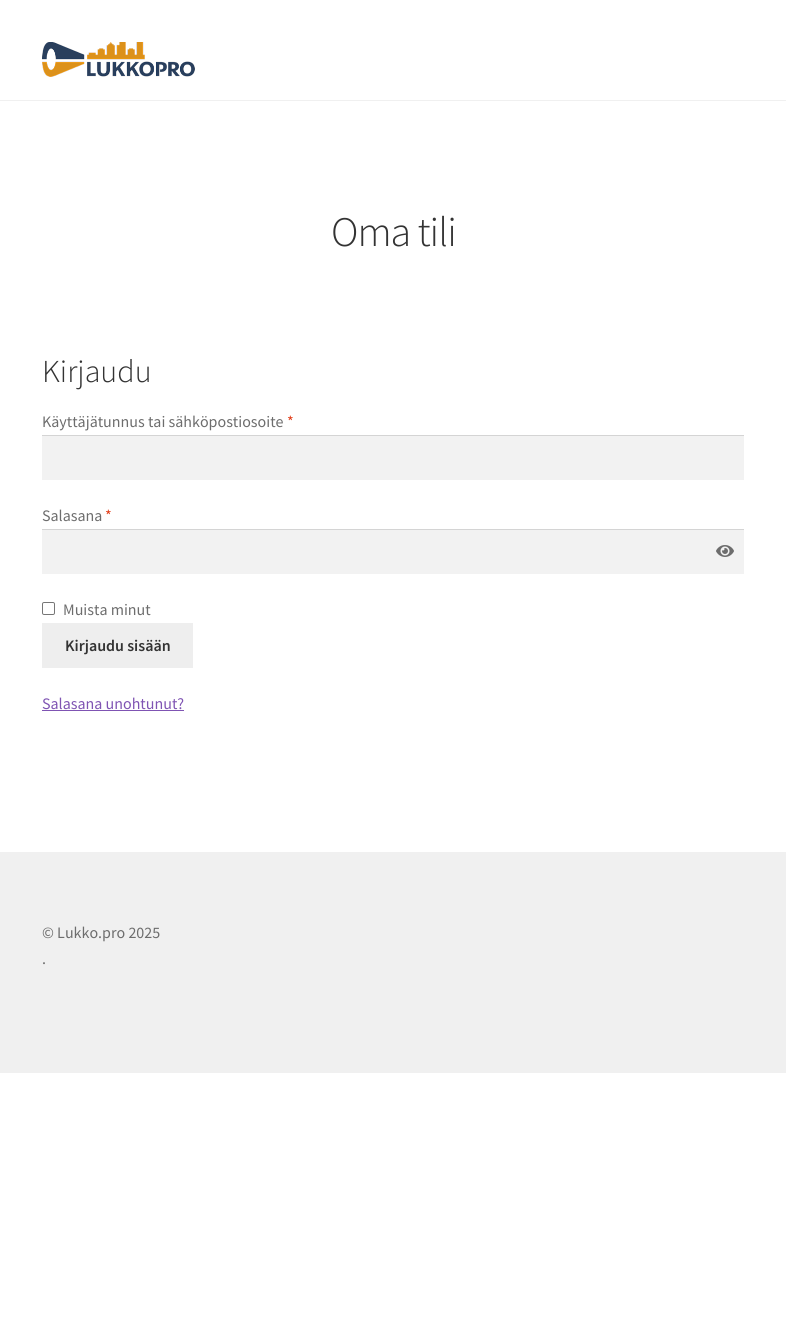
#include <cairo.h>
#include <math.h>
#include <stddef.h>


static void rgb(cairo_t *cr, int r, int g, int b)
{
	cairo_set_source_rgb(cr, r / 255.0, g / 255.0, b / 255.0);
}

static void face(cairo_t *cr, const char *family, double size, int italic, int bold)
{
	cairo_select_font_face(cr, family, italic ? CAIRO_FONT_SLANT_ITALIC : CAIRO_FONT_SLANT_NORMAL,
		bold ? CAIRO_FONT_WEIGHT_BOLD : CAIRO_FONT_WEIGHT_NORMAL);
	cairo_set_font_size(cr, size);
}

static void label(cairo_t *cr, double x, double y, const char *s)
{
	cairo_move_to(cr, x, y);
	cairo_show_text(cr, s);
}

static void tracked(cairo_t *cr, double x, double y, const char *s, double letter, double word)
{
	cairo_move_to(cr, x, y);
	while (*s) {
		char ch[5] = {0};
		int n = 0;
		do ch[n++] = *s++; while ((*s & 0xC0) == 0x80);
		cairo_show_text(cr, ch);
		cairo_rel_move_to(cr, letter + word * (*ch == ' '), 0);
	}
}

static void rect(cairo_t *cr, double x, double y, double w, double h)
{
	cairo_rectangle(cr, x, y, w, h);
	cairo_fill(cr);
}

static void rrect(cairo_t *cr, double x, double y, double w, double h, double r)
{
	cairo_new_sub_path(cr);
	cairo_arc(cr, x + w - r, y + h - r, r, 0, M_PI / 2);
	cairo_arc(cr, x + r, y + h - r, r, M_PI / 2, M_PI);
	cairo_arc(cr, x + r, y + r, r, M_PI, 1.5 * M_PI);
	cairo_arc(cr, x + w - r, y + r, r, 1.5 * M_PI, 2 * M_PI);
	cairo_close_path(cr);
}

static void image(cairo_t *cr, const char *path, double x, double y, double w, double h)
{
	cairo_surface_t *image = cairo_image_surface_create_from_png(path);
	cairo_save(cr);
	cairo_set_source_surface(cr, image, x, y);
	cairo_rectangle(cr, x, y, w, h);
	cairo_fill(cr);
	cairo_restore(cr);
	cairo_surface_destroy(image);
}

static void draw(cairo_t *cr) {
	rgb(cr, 255, 255, 255);
	cairo_paint(cr);
	rgb(cr, 240, 240, 240);
	rect(cr, 0, 100, 786, 1);
	image(cr, "image0.png", 42, 42, 153, 35);
	face(cr, "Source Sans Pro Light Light", 42, 0, 0);
	rgb(cr, 51, 51, 51);
	tracked(cr, 331, 246, "Oma tili", -1, 0);
	face(cr, "Source Sans Pro Light Light", 32, 0, 0);
	label(cr, 42, 382, "Kirjaudu");
	face(cr, "Source Sans Pro", 16, 0, 0);
	rgb(cr, 109, 109, 109);
	label(cr, 42, 427, "Käyttäjätunnus tai sähköpostiosoite");
	rgb(cr, 226, 64, 28);
	label(cr, 287, 427, "*");
	rgb(cr, 242, 242, 242);
	rect(cr, 42, 436, 702, 44);
	rgb(cr, 212, 212, 212);
	rect(cr, 42, 435, 702, 1);
	rgb(cr, 109, 109, 109);
	label(cr, 42, 521, "Salasana");
	rgb(cr, 226, 64, 28);
	label(cr, 105, 521, "*");
	rgb(cr, 242, 242, 242);
	rect(cr, 42, 530, 702, 44);
	rgb(cr, 212, 212, 212);
	rect(cr, 42, 529, 702, 1);
	image(cr, "image1.png", 716, 545, 18, 12);
	rrect(cr, 42.5, 602.5, 12, 12, 1.5);
	rgb(cr, 118, 118, 118);
	cairo_set_line_width(cr, 1);
	cairo_stroke(cr);
	rgb(cr, 109, 109, 109);
	label(cr, 63, 615, "Muista minut");
	rgb(cr, 238, 238, 238);
	rect(cr, 42, 623, 151, 45);
	face(cr, "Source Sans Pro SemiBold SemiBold", 16, 0, 0);
	rgb(cr, 51, 51, 51);
	label(cr, 65, 651, "Kirjaudu sisään");
	face(cr, "Source Sans Pro", 16, 0, 0);
	rgb(cr, 127, 84, 179);
	label(cr, 42, 709, "Salasana unohtunut?");
	rect(cr, 42, 710, 142, 1);
	rgb(cr, 240, 240, 240);
	rect(cr, 0, 852, 786, 221);
	rgb(cr, 109, 109, 109);
	label(cr, 42, 938, "© Lukko.pro 2025");
	label(cr, 42, 964, ".");
}

int main(void) {
	cairo_surface_t *surface = cairo_image_surface_create(CAIRO_FORMAT_RGB24, 786, 1317);
	cairo_t *cr = cairo_create(surface);
	cairo_font_options_t *options = cairo_font_options_create();
	cairo_font_options_set_hint_metrics(options, CAIRO_HINT_METRICS_OFF);
	cairo_font_options_set_hint_style(options, CAIRO_HINT_STYLE_NONE);
	cairo_set_font_options(cr, options);
	cairo_set_miter_limit(cr, 4);
	draw(cr);
	cairo_surface_write_to_png(surface, "render.png");
	cairo_font_options_destroy(options);
	cairo_destroy(cr);
	cairo_surface_destroy(surface);
	return 0;
}
